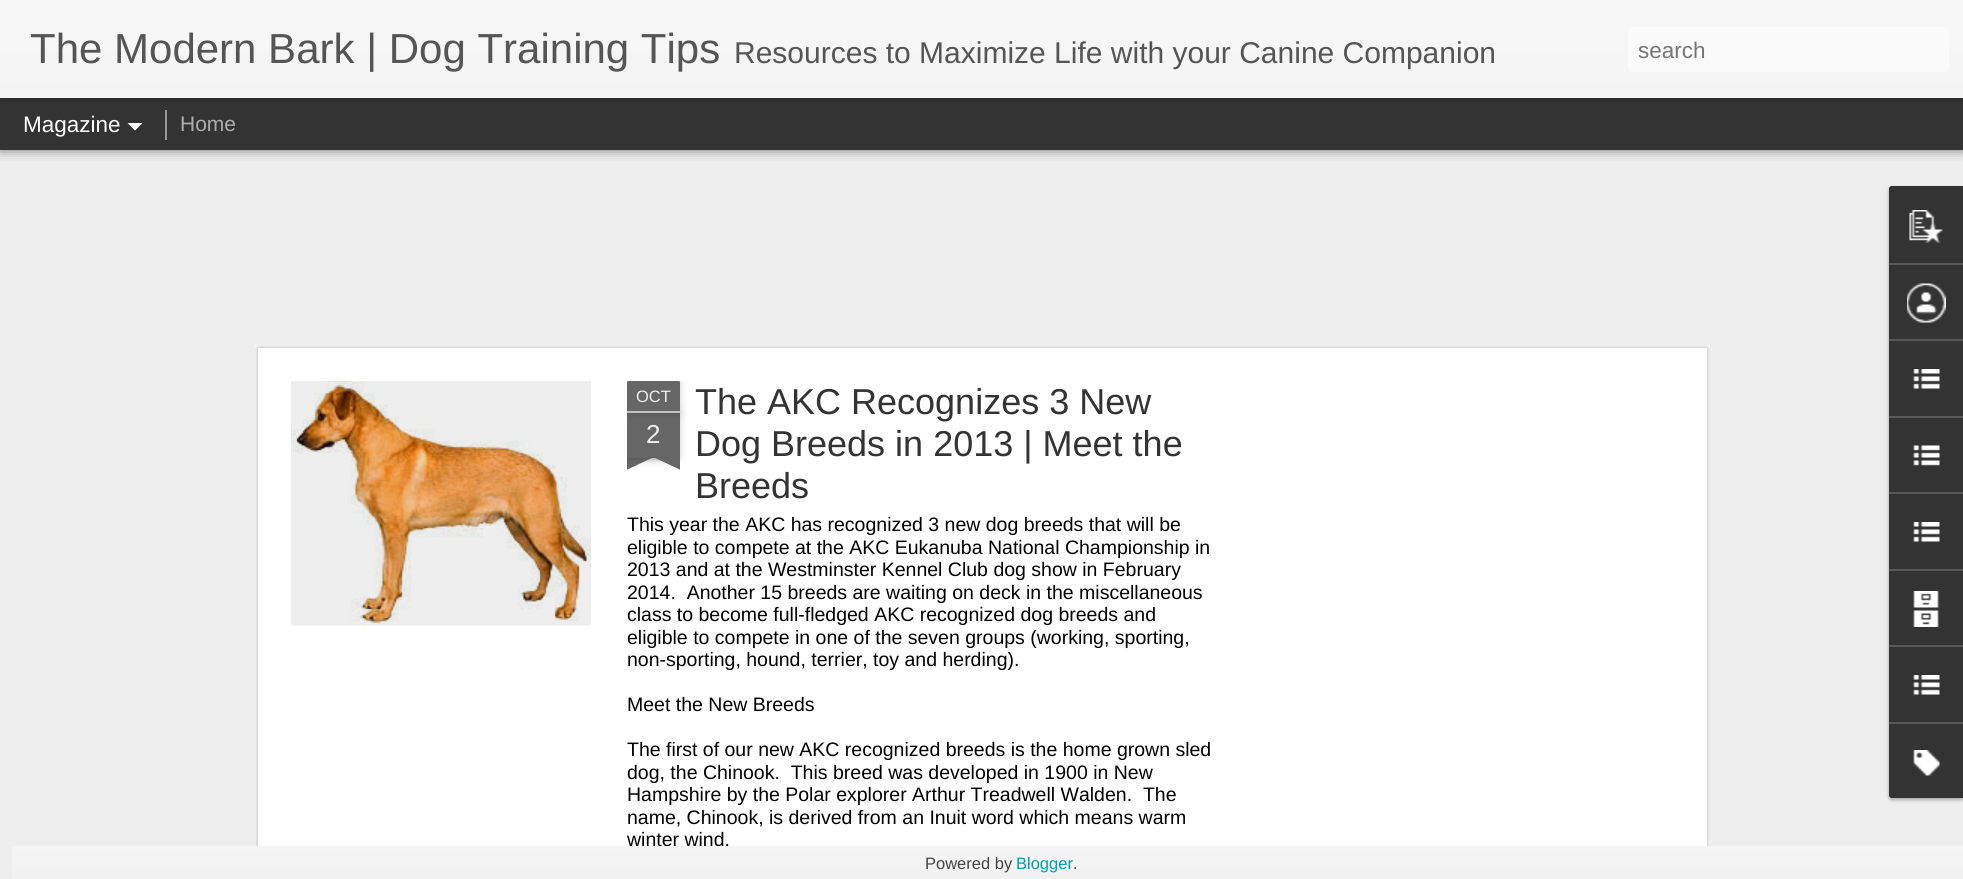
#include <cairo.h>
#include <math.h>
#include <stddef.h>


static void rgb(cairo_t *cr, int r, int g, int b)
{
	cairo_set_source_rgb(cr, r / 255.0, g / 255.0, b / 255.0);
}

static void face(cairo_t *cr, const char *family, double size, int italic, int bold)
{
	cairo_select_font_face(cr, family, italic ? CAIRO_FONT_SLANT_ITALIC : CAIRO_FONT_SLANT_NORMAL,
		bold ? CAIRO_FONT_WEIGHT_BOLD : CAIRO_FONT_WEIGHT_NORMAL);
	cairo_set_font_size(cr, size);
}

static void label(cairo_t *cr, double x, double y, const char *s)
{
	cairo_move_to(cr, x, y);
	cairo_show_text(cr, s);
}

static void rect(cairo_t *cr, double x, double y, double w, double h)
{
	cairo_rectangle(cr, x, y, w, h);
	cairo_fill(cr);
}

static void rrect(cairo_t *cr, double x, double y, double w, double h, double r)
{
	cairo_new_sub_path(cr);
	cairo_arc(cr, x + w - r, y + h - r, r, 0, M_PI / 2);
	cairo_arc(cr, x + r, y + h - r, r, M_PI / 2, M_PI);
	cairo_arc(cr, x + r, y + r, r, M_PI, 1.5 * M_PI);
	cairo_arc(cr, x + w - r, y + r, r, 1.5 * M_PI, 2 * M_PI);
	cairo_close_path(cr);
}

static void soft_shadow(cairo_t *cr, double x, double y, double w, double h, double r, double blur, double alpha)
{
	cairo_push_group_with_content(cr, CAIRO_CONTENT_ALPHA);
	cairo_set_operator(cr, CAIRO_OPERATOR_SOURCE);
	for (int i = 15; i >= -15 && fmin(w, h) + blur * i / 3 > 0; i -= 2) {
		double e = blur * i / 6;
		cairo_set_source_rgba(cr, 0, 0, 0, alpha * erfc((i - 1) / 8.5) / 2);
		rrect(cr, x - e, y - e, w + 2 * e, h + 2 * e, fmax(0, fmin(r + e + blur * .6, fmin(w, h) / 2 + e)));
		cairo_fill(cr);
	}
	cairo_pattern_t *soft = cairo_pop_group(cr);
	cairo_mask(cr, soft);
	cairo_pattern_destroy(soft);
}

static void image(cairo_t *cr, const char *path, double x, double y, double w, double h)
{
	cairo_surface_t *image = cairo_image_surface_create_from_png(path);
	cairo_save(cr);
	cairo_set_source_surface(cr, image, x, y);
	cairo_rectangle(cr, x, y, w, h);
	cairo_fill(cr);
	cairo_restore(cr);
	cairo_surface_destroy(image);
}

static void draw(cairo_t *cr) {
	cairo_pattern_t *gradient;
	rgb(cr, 238, 238, 238);
	cairo_paint(cr);
	rgb(cr, 0, 0, 0);
	soft_shadow(cr, 0, 98, 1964, 52, 0, 6, 0.5);
	rgb(cr, 51, 51, 51);
	rect(cr, 0, 98, 1963, 52);
	rgb(cr, 153, 153, 153);
	rect(cr, 165, 110, 2, 30);
	rgb(cr, 0, 0, 0);
	soft_shadow(cr, 0, 0, 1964, 98, 0, 4, 0.3);
	gradient = cairo_pattern_create_linear(0, 0, 0, 98);
	cairo_pattern_add_color_stop_rgba(gradient, 0, 0.969, 0.969, 0.969, 1);
	cairo_pattern_add_color_stop_rgba(gradient, 1, 0.957, 0.957, 0.957, 1);
	cairo_set_source(cr, gradient);
	cairo_pattern_destroy(gradient);
	rect(cr, 0, 0, 1963, 98);
	face(cr, "Liberation Sans", 42, 0, 0);
	rgb(cr, 85, 85, 85);
	label(cr, 30, 63, "The Modern Bark | Dog Training Tips");
	face(cr, "Liberation Sans", 30, 0, 0);
	label(cr, 734, 63, "Resources to Maximize Life with your Canine Companion");
	rgb(cr, 250, 250, 250);
	rrect(cr, 1628, 27, 321, 45, 5);
	cairo_fill(cr);
	face(cr, "Liberation Sans", 22.5, 0, 0);
	rgb(cr, 117, 117, 117);
	label(cr, 1638, 58, "search");
	rgb(cr, 255, 255, 255);
	label(cr, 23, 132, "Magazine");
	cairo_new_path(cr);
	cairo_move_to(cr, 127.5, 123);
	cairo_line_to(cr, 142.5, 123);
	cairo_line_to(cr, 135, 130.5);
	cairo_close_path(cr);
	cairo_fill(cr);
	face(cr, "Liberation Sans", 21, 0, 0);
	rgb(cr, 173, 173, 173);
	label(cr, 180, 131, "Home");
	rgb(cr, 255, 255, 255);
	rect(cr, 255, 345, 1455, 501);
	image(cr, "image0.png", 255, 345, 1455, 501);
	image(cr, "image1.png", 291, 381, 300, 245);
	cairo_save(cr);
	cairo_rectangle(cr, 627, 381, 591, 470);
	cairo_clip(cr);
	rgb(cr, 0, 0, 0);
	soft_shadow(cr, 627, 413, 53, 45, 0, 4, 0.2);
	cairo_restore(cr);
	rgb(cr, 102, 102, 102);
	rect(cr, 627, 413, 53, 45);
	cairo_save(cr);
	cairo_rectangle(cr, 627, 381, 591, 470);
	cairo_clip(cr);
	rgb(cr, 0, 0, 0);
	soft_shadow(cr, 627, 381, 53, 32, 1.5, 4, 0.2);
	cairo_restore(cr);
	cairo_new_path(cr);
	cairo_move_to(cr, 628.5, 381);
	cairo_line_to(cr, 678.5, 381);
	cairo_curve_to(cr, 679.5, 381, 680, 381.5, 680, 382.5);
	cairo_line_to(cr, 680, 413);
	cairo_line_to(cr, 627, 413);
	cairo_line_to(cr, 627, 382.5);
	cairo_curve_to(cr, 627, 381.5, 627.5, 381, 628.5, 381);
	cairo_close_path(cr);
	cairo_fill(cr);
	rgb(cr, 194, 194, 194);
	rect(cr, 627, 411, 53, 2);
	face(cr, "Liberation Sans", 16.5, 0, 0);
	rgb(cr, 238, 238, 238);
	label(cr, 636, 402, "OCT");
	face(cr, "Liberation Sans", 26, 0, 0);
	label(cr, 646, 443, "2");
	cairo_save(cr);
	cairo_rectangle(cr, 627, 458, 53, 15);
	cairo_clip(cr);
	rgb(cr, 0, 0, 0);
	soft_shadow(cr, 614, 443, 75, 15, 0, 4, 0.2);
	cairo_restore(cr);
	cairo_save(cr);
	cairo_rectangle(cr, 627, 458, 53, 15);
	cairo_clip(cr);
	rgb(cr, 102, 102, 102);
	cairo_new_path(cr);
	cairo_move_to(cr, 614, 459);
	cairo_line_to(cr, 682, 427);
	cairo_line_to(cr, 688, 441);
	cairo_line_to(cr, 620, 473);
	cairo_close_path(cr);
	cairo_fill(cr);
	cairo_restore(cr);
	cairo_save(cr);
	cairo_rectangle(cr, 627, 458, 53, 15);
	cairo_clip(cr);
	rgb(cr, 0, 0, 0);
	soft_shadow(cr, 618, 443, 75, 15, 0, 4, 0.2);
	cairo_restore(cr);
	cairo_save(cr);
	cairo_rectangle(cr, 627, 458, 53, 15);
	cairo_clip(cr);
	rgb(cr, 102, 102, 102);
	cairo_new_path(cr);
	cairo_move_to(cr, 625, 427);
	cairo_line_to(cr, 693, 459);
	cairo_line_to(cr, 687, 473);
	cairo_line_to(cr, 619, 441);
	cairo_close_path(cr);
	cairo_fill(cr);
	cairo_restore(cr);
	face(cr, "Liberation Sans", 36, 0, 0);
	rgb(cr, 51, 51, 51);
	label(cr, 695, 414, "The AKC Recognizes 3 New");
	label(cr, 695, 456, "Dog Breeds in 2013 | Meet the");
	label(cr, 695, 498, "Breeds");
	face(cr, "Liberation Sans", 19.5, 0, 0);
	rgb(cr, 0, 0, 0);
	label(cr, 627, 531, "This year the AKC has recognized 3 new dog breeds that will be");
	label(cr, 627, 554, "eligible to compete at the AKC Eukanuba National Championship in");
	label(cr, 627, 576, "2013 and at the Westminster Kennel Club dog show in February");
	label(cr, 627, 599, "2014.  Another 15 breeds are waiting on deck in the miscellaneous");
	label(cr, 627, 621, "class to become full-fledged AKC recognized dog breeds and");
	label(cr, 627, 644, "eligible to compete in one of the seven groups (working, sporting,");
	label(cr, 627, 666, "non-sporting, hound, terrier, toy and herding).");
	label(cr, 627, 711, "Meet the New Breeds");
	label(cr, 627, 756, "The first of our new AKC recognized breeds is the home grown sled");
	label(cr, 627, 779, "dog, the Chinook.  This breed was developed in 1900 in New");
	label(cr, 627, 801, "Hampshire by the Polar explorer Arthur Treadwell Walden.  The");
	label(cr, 627, 824, "name, Chinook, is derived from an Inuit word which means warm");
	label(cr, 627, 846, "winter wind.");
	rgb(cr, 0, 0, 0);
	soft_shadow(cr, 1889, 188, 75, 612, 3, 2, 0.3);
	rgb(cr, 51, 51, 51);
	cairo_new_path(cr);
	cairo_move_to(cr, 1892, 186);
	cairo_line_to(cr, 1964, 186);
	cairo_line_to(cr, 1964, 798);
	cairo_line_to(cr, 1892, 798);
	cairo_curve_to(cr, 1890.5, 798, 1889, 796.5, 1889, 795);
	cairo_line_to(cr, 1889, 189);
	cairo_curve_to(cr, 1889, 187.5, 1890.5, 186, 1892, 186);
	cairo_close_path(cr);
	cairo_fill(cr);
	cairo_new_path(cr);
	cairo_move_to(cr, 1892, 186);
	cairo_line_to(cr, 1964, 186);
	cairo_line_to(cr, 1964, 263);
	cairo_line_to(cr, 1889, 263);
	cairo_line_to(cr, 1889, 189);
	cairo_curve_to(cr, 1889, 187.5, 1890.5, 186, 1892, 186);
	cairo_close_path(cr);
	cairo_fill(cr);
	image(cr, "image2.png", 1909, 210, 34, 33);
	rgb(cr, 88, 88, 88);
	rect(cr, 1889, 263, 74, 2);
	image(cr, "image3.png", 1907, 283, 39, 40);
	rect(cr, 1889, 339, 74, 2);
	image(cr, "image4.png", 1913, 369, 27, 20);
	rect(cr, 1889, 416, 74, 2);
	image(cr, "image5.png", 1913, 445, 27, 21);
	rect(cr, 1889, 492, 74, 2);
	image(cr, "image4.png", 1913, 522, 27, 20);
	rect(cr, 1889, 569, 74, 2);
	image(cr, "image6.png", 1913, 591, 26, 36);
	rect(cr, 1889, 645, 74, 2);
	image(cr, "image4.png", 1913, 675, 27, 20);
	rgb(cr, 51, 51, 51);
	cairo_new_path(cr);
	cairo_move_to(cr, 1889, 722);
	cairo_line_to(cr, 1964, 722);
	cairo_line_to(cr, 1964, 798);
	cairo_line_to(cr, 1892, 798);
	cairo_curve_to(cr, 1890.5, 798, 1889, 796.5, 1889, 795);
	cairo_close_path(cr);
	cairo_fill(cr);
	rgb(cr, 88, 88, 88);
	rect(cr, 1889, 722, 74, 2);
	image(cr, "image7.png", 1913, 750, 27, 26);
	gradient = cairo_pattern_create_linear(1001, 846, 1001, 879);
	cairo_pattern_add_color_stop_rgba(gradient, 0, 0.961, 0.961, 0.961, 1);
	cairo_pattern_add_color_stop_rgba(gradient, 1, 0.945, 0.945, 0.945, 1);
	cairo_set_source(cr, gradient);
	cairo_pattern_destroy(gradient);
	rect(cr, 12, 846, 1951, 33);
	face(cr, "Liberation Sans", 16.5, 0, 0);
	rgb(cr, 68, 68, 68);
	label(cr, 925, 869, "Powered by");
	rgb(cr, 0, 158, 184);
	label(cr, 1016, 869, "Blogger");
	rgb(cr, 68, 68, 68);
	label(cr, 1073, 869, ".");
}

int main(void) {
	cairo_surface_t *surface = cairo_image_surface_create(CAIRO_FORMAT_RGB24, 1963, 879);
	cairo_t *cr = cairo_create(surface);
	cairo_font_options_t *options = cairo_font_options_create();
	cairo_font_options_set_hint_metrics(options, CAIRO_HINT_METRICS_OFF);
	cairo_font_options_set_hint_style(options, CAIRO_HINT_STYLE_NONE);
	cairo_set_font_options(cr, options);
	cairo_set_miter_limit(cr, 4);
	draw(cr);
	cairo_surface_write_to_png(surface, "render.png");
	cairo_font_options_destroy(options);
	cairo_destroy(cr);
	cairo_surface_destroy(surface);
	return 0;
}
